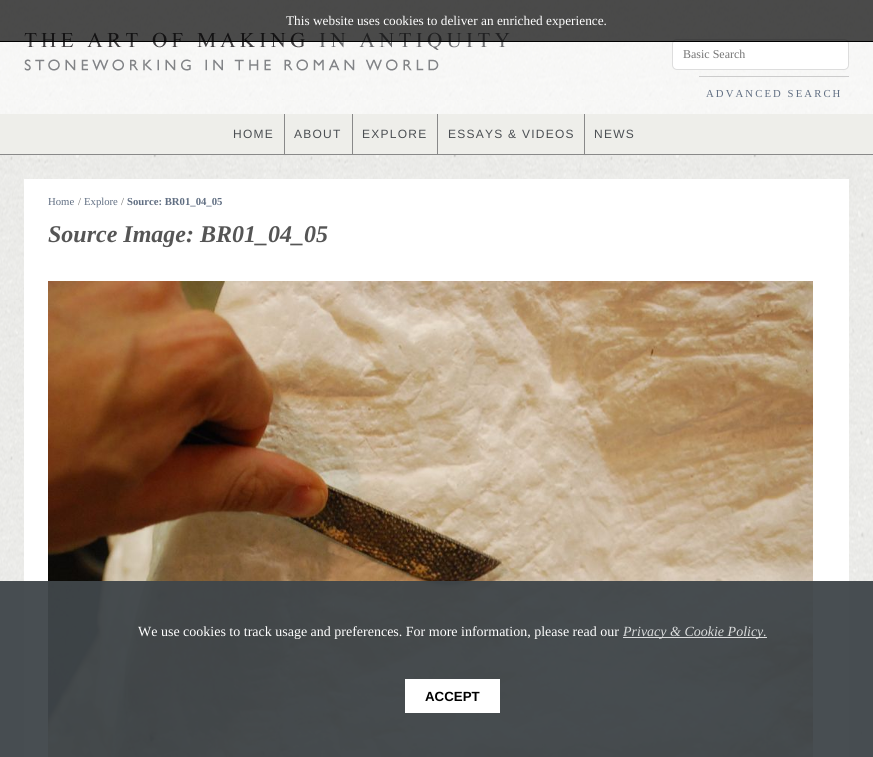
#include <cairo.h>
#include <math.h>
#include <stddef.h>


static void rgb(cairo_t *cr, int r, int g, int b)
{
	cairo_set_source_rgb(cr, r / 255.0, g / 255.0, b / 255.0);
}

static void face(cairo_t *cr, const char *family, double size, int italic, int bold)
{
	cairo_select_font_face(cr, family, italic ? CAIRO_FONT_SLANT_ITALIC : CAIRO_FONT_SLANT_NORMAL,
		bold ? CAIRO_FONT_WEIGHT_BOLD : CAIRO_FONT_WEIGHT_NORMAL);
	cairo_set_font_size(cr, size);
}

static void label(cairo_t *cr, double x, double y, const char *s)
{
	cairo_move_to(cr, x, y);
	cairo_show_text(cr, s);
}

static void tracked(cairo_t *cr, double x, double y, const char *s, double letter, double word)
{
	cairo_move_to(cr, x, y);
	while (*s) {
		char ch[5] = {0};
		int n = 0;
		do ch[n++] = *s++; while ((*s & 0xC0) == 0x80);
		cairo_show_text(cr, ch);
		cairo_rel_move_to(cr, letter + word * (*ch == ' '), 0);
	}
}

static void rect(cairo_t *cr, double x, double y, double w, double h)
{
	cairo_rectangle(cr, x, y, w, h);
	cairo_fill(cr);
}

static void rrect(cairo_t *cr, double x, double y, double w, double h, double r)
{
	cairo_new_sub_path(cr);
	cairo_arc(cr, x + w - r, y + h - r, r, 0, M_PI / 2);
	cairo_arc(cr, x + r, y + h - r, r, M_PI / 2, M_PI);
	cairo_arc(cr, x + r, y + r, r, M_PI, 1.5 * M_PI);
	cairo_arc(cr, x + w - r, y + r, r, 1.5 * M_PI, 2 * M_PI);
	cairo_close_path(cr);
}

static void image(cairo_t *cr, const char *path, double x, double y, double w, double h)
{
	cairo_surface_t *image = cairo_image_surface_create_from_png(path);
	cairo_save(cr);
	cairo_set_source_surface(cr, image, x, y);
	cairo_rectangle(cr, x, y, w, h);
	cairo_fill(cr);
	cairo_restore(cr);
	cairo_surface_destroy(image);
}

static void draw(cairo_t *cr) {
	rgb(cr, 255, 255, 255);
	cairo_paint(cr);
	image(cr, "image0.png", 0, 155, 873, 602);
	rgb(cr, 255, 255, 255);
	rect(cr, 24, 179, 825, 578);
	image(cr, "image2.png", 0, 0, 873, 114);
	rrect(cr, 672.5, 39.5, 176, 30, 4.5);
	cairo_fill_preserve(cr);
	rgb(cr, 221, 221, 221);
	cairo_set_line_width(cr, 1);
	cairo_stroke(cr);
	image(cr, "image3.png", 24, 32, 486, 18);
	cairo_set_source_rgba(cr, 0, 0, 0, 0.7);
	rect(cr, 0, 0, 873, 41);
	rgb(cr, 0, 0, 0);
	rect(cr, 0, 41, 873, 1);
	face(cr, "Liberation Serif", 13.3, 0, 0);
	rgb(cr, 255, 255, 255);
	label(cr, 286, 25, "This website uses cookies to deliver an enriched experience.");
	face(cr, "Liberation Serif", 10.7, 0, 0);
	rgb(cr, 96, 110, 130);
	label(cr, 48, 205, "Home");
	rgb(cr, 102, 102, 102);
	label(cr, 78, 205, "/");
	rgb(cr, 96, 110, 130);
	label(cr, 84, 205, "Explore");
	rgb(cr, 102, 102, 102);
	label(cr, 121, 205, "/");
	face(cr, "Liberation Serif", 10.7, 0, 1);
	rgb(cr, 96, 110, 130);
	label(cr, 127, 205, "Source: BR01_04_05");
	face(cr, "Liberation Serif", 24, 1, 1);
	rgb(cr, 85, 85, 85);
	label(cr, 48, 242, "Source Image: BR01_04_05");
	image(cr, "image1.png", 48, 281, 765, 476);
	face(cr, "Liberation Serif", 12, 0, 0);
	rgb(cr, 117, 117, 117);
	label(cr, 683, 58, "Basic Search");
	rgb(cr, 204, 204, 204);
	rect(cr, 699, 76, 150, 1);
	face(cr, "Liberation Serif", 10.7, 0, 0);
	rgb(cr, 96, 110, 130);
	tracked(cr, 706, 97, "ADVANCED SEARCH", 2.1, 0);
	image(cr, "image4.png", 24, 59, 415, 12);
	rgb(cr, 238, 238, 234);
	rect(cr, 0, 114, 873, 40);
	rgb(cr, 137, 137, 137);
	rect(cr, 0, 154, 873, 1);
	rect(cr, 284, 114, 1, 40);
	face(cr, "Liberation Sans", 12, 0, 0);
	rgb(cr, 75, 79, 83);
	tracked(cr, 233, 138, "HOME", 1.25, 0);
	rgb(cr, 137, 137, 137);
	rect(cr, 352, 114, 1, 40);
	rgb(cr, 75, 79, 83);
	tracked(cr, 294, 138, "ABOUT", 1.25, 0);
	rgb(cr, 137, 137, 137);
	rect(cr, 437, 114, 1, 40);
	rgb(cr, 75, 79, 83);
	tracked(cr, 362, 138, "EXPLORE", 1.25, 0);
	rgb(cr, 137, 137, 137);
	rect(cr, 584, 114, 1, 40);
	rgb(cr, 75, 79, 83);
	tracked(cr, 448, 138, "ESSAYS & VIDEOS", 1.25, 0);
	tracked(cr, 594, 138, "NEWS", 1.25, 0);
	cairo_set_source_rgba(cr, 0.247, 0.275, 0.29, 0.95);
	rect(cr, 0, 581, 873, 176);
	face(cr, "Liberation Serif", 14, 0, 0);
	rgb(cr, 255, 255, 255);
	label(cr, 138, 636, "We use cookies to track usage and preferences. For more information, please read our");
	cairo_set_source_rgba(cr, 1, 1, 1, 0.8);
	rect(cr, 623, 637, 144, 1);
	face(cr, "Liberation Serif", 14, 1, 0);
	rgb(cr, 218, 220, 220);
	label(cr, 623, 636, "Privacy & Cookie Policy.");
	rgb(cr, 255, 255, 255);
	rect(cr, 405, 679, 95, 34);
	face(cr, "Liberation Sans", 13.3, 0, 1);
	rgb(cr, 0, 0, 0);
	label(cr, 425, 701, "ACCEPT");
}

int main(void) {
	cairo_surface_t *surface = cairo_image_surface_create(CAIRO_FORMAT_RGB24, 873, 757);
	cairo_t *cr = cairo_create(surface);
	cairo_font_options_t *options = cairo_font_options_create();
	cairo_font_options_set_hint_metrics(options, CAIRO_HINT_METRICS_OFF);
	cairo_font_options_set_hint_style(options, CAIRO_HINT_STYLE_NONE);
	cairo_set_font_options(cr, options);
	cairo_set_miter_limit(cr, 4);
	draw(cr);
	cairo_surface_write_to_png(surface, "render.png");
	cairo_font_options_destroy(options);
	cairo_destroy(cr);
	cairo_surface_destroy(surface);
	return 0;
}
